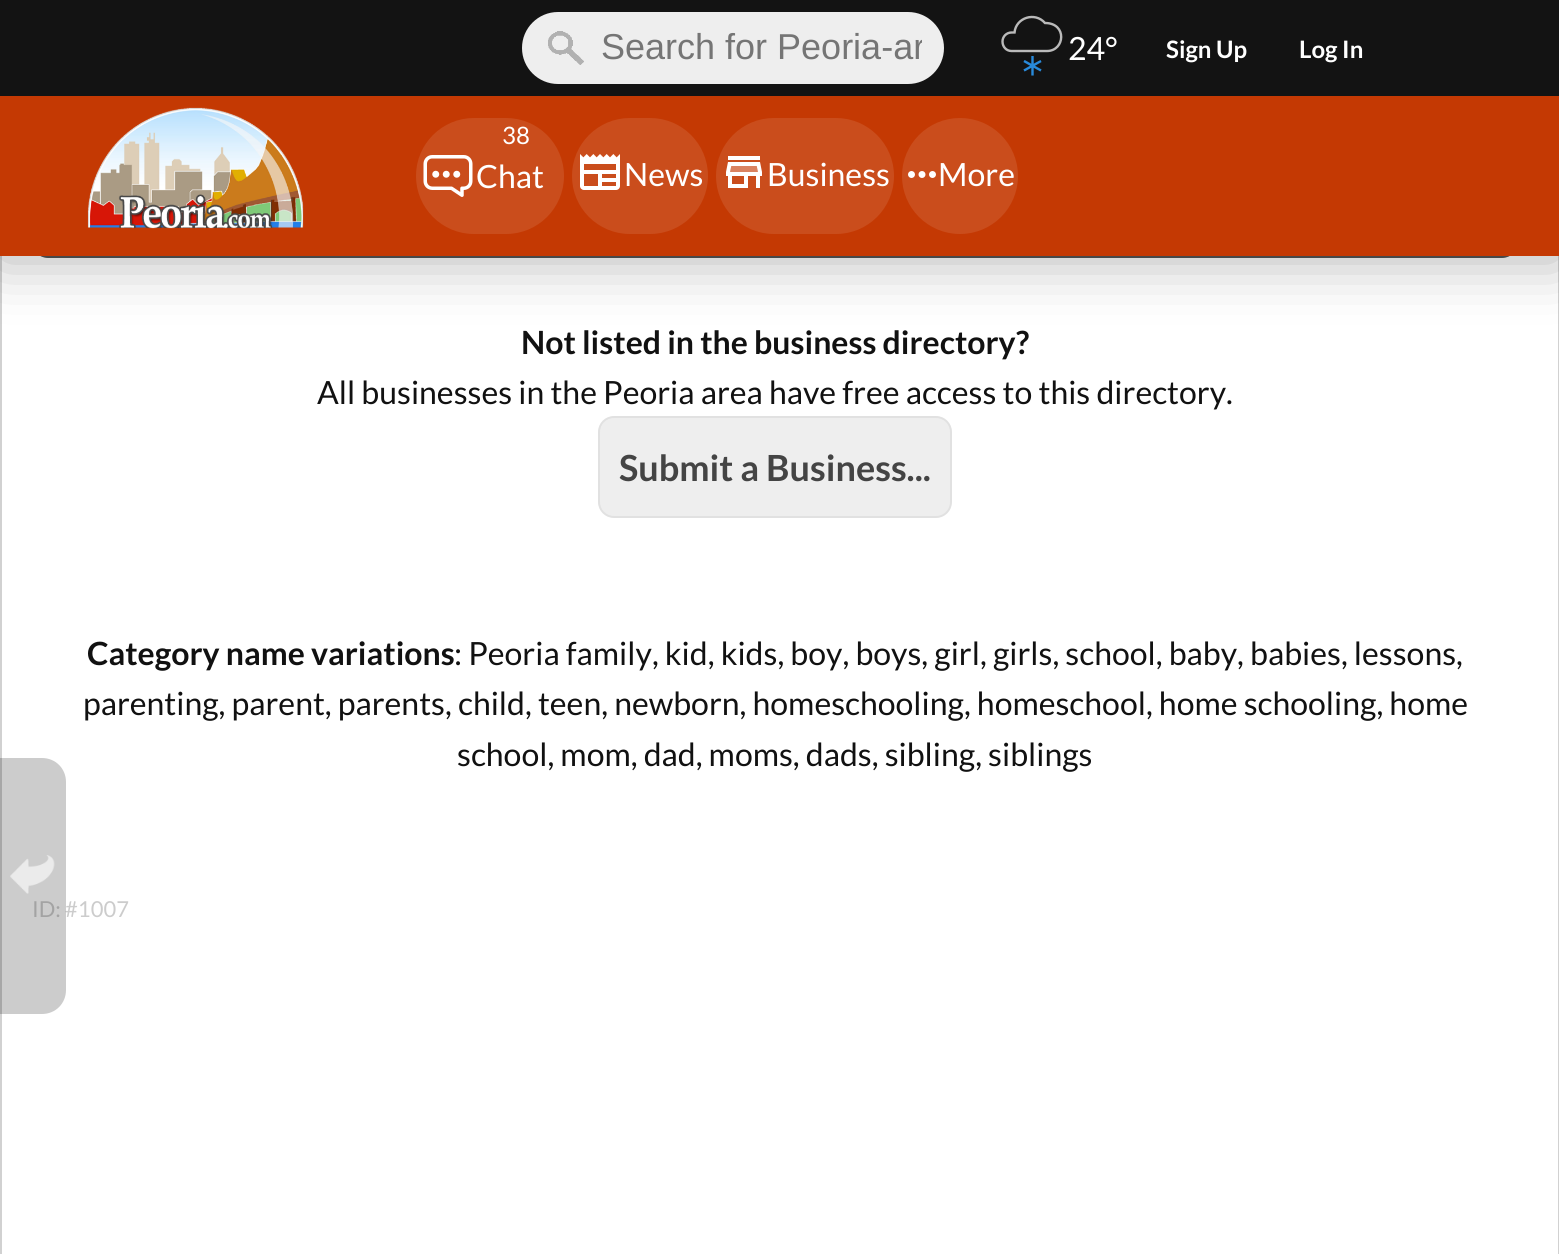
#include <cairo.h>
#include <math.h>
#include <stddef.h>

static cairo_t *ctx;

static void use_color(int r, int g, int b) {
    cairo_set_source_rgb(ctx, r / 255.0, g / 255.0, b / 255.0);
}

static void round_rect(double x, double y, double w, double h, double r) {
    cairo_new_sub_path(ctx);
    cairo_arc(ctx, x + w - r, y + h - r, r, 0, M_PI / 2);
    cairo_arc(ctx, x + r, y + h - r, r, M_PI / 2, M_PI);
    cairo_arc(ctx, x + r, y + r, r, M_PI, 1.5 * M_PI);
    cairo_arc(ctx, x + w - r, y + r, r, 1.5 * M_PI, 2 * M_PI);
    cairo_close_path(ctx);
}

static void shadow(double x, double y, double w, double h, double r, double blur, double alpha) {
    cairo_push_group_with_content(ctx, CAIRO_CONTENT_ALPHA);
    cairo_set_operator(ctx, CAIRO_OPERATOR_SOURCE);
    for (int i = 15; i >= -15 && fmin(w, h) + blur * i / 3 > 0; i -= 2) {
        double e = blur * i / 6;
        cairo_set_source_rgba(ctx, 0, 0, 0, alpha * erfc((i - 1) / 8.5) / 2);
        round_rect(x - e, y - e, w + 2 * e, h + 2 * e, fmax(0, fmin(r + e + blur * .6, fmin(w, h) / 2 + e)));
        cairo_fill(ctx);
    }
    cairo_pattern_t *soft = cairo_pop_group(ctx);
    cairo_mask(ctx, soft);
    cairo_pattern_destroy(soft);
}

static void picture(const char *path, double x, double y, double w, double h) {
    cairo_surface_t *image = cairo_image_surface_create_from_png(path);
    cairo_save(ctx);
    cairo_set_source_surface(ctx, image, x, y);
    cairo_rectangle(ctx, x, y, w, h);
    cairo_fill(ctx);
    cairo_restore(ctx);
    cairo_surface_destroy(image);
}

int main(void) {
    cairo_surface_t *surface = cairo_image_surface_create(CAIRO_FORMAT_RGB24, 1559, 1254);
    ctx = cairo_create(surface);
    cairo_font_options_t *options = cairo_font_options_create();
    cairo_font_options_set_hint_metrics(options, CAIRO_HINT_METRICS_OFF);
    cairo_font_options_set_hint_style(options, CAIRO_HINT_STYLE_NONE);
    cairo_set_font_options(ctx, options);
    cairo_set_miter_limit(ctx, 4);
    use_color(255, 255, 255);
    cairo_paint(ctx);
    use_color(209, 209, 209);
    cairo_new_path(ctx);
    cairo_move_to(ctx, 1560, -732);
    cairo_line_to(ctx, 1558, -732);
    cairo_line_to(ctx, 1558, 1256);
    cairo_line_to(ctx, 1557, 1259);
    cairo_line_to(ctx, 1558, 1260);
    cairo_curve_to(ctx, 1559, 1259, 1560, 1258, 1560, 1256);
    cairo_close_path(ctx);
    cairo_fill(ctx);
    cairo_new_path(ctx);
    cairo_move_to(ctx, 0, -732);
    cairo_line_to(ctx, 2, -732);
    cairo_line_to(ctx, 2, 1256);
    cairo_line_to(ctx, 3, 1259);
    cairo_line_to(ctx, 2, 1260);
    cairo_curve_to(ctx, 1, 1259, 0, 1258, 0, 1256);
    cairo_close_path(ctx);
    cairo_fill(ctx);
    round_rect(33, 165, 1484, 92, 15);
    use_color(85, 85, 85);
    cairo_stroke(ctx);
    use_color(0, 0, 0);
    shadow(-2, 0, 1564, 260, 0, 30, 0.3);
    use_color(19, 19, 19);
    cairo_rectangle(ctx, 0, 0, 1559, 96);
    cairo_fill(ctx);
    use_color(238, 238, 238);
    round_rect(522, 12, 422, 72, 36);
    cairo_fill(ctx);
    picture("img1.png", 548, 31, 36, 34);
    cairo_save(ctx);
    cairo_rectangle(ctx, 600, 28, 322, 42);
    cairo_clip(ctx);
    cairo_select_font_face(ctx, "Liberation Sans", CAIRO_FONT_SLANT_NORMAL, CAIRO_FONT_WEIGHT_NORMAL);
    cairo_set_font_size(ctx, 36);
    use_color(117, 117, 117);
    cairo_move_to(ctx, 601, 59);
    cairo_show_text(ctx, "Search for Peoria-ar");
    cairo_restore(ctx);
    cairo_new_path(ctx);
    cairo_move_to(ctx, 1047, 51);
    cairo_curve_to(ctx, 1065, 51, 1067.5, 23, 1045, 23);
    cairo_curve_to(ctx, 1035, 11.5, 1016, 17.5, 1014.5, 32.5);
    cairo_line_to(ctx, 1011.5, 32.5);
    cairo_curve_to(ctx, 1006.5, 32.5, 1002.5, 36.5, 1002.5, 41.5);
    cairo_curve_to(ctx, 1002.5, 47, 1006.5, 51, 1011.5, 51);
    cairo_close_path(ctx);
    use_color(186, 186, 186);
    cairo_set_line_width(ctx, 2.4);
    cairo_stroke(ctx);
    cairo_new_path(ctx);
    cairo_move_to(ctx, 1032.5, 56);
    cairo_line_to(ctx, 1032.5, 75.5);
    cairo_move_to(ctx, 1024, 61);
    cairo_line_to(ctx, 1041, 70.5);
    cairo_move_to(ctx, 1024, 70.5);
    cairo_line_to(ctx, 1041, 61);
    use_color(40, 138, 219);
    cairo_stroke(ctx);
    cairo_select_font_face(ctx, "Lato", CAIRO_FONT_SLANT_NORMAL, CAIRO_FONT_WEIGHT_NORMAL);
    cairo_set_font_size(ctx, 32);
    use_color(255, 255, 255);
    cairo_move_to(ctx, 1068, 60);
    cairo_show_text(ctx, "24°");
    cairo_select_font_face(ctx, "Lato", CAIRO_FONT_SLANT_NORMAL, CAIRO_FONT_WEIGHT_BOLD);
    cairo_set_font_size(ctx, 24);
    cairo_move_to(ctx, 1166, 58);
    cairo_show_text(ctx, "Sign Up");
    cairo_move_to(ctx, 1299, 58);
    cairo_show_text(ctx, "Log In");
    use_color(196, 57, 3);
    cairo_rectangle(ctx, 0, 96, 1559, 160);
    cairo_fill(ctx);
    picture("img2.png", 87, 107, 217, 122);
    use_color(202, 77, 28);
    round_rect(416, 118, 148, 116, 58);
    cairo_fill(ctx);
    cairo_select_font_face(ctx, "Lato", CAIRO_FONT_SLANT_NORMAL, CAIRO_FONT_WEIGHT_NORMAL);
    use_color(255, 255, 255);
    cairo_move_to(ctx, 502, 144);
    cairo_show_text(ctx, "38");
    picture("img3.png", 423, 155, 50, 42);
    cairo_set_font_size(ctx, 32);
    cairo_move_to(ctx, 476, 188);
    cairo_show_text(ctx, "Chat");
    use_color(202, 77, 28);
    round_rect(572, 118, 136, 116, 58);
    cairo_fill(ctx);
    picture("img4.png", 580, 154, 40, 36);
    use_color(255, 255, 255);
    cairo_move_to(ctx, 624, 186);
    cairo_show_text(ctx, "News");
    use_color(202, 77, 28);
    round_rect(716, 118, 178, 116, 58);
    cairo_fill(ctx);
    picture("img5.png", 726, 156, 36, 32);
    use_color(255, 255, 255);
    cairo_move_to(ctx, 767, 186);
    cairo_show_text(ctx, "Business");
    use_color(202, 77, 28);
    cairo_new_path(ctx);
    cairo_arc(ctx, 960, 176, 58, 0, 2 * M_PI);
    cairo_fill(ctx);
    picture("img6.png", 908, 171, 28, 7);
    use_color(255, 255, 255);
    cairo_move_to(ctx, 938, 186);
    cairo_show_text(ctx, "More");
    cairo_set_font_size(ctx, 22);
    use_color(204, 204, 204);
    cairo_move_to(ctx, 32, 917);
    cairo_show_text(ctx, "ID: #1007");
    cairo_set_source_rgba(ctx, 0, 0, 0, 0.2);
    cairo_new_path(ctx);
    cairo_move_to(ctx, 0, 758);
    cairo_line_to(ctx, 42, 758);
    cairo_curve_to(ctx, 55.5, 758, 66, 768.5, 66, 782);
    cairo_line_to(ctx, 66, 990);
    cairo_curve_to(ctx, 66, 1003.5, 55.5, 1014, 42, 1014);
    cairo_line_to(ctx, 0, 1014);
    cairo_close_path(ctx);
    cairo_fill(ctx);
    picture("img7.png", 10, 855, 45, 39);
    cairo_select_font_face(ctx, "Lato", CAIRO_FONT_SLANT_NORMAL, CAIRO_FONT_WEIGHT_BOLD);
    cairo_set_font_size(ctx, 32);
    use_color(17, 17, 17);
    cairo_move_to(ctx, 521, 354);
    cairo_show_text(ctx, "Not listed in the business directory?");
    cairo_select_font_face(ctx, "Lato", CAIRO_FONT_SLANT_NORMAL, CAIRO_FONT_WEIGHT_NORMAL);
    cairo_move_to(ctx, 317, 404);
    cairo_show_text(ctx, "All businesses in the Peoria area have free access to this directory.");
    use_color(238, 238, 238);
    round_rect(599, 417, 352, 100, 15);
    cairo_fill_preserve(ctx);
    use_color(225, 225, 225);
    cairo_set_line_width(ctx, 2);
    cairo_stroke(ctx);
    cairo_select_font_face(ctx, "Lato", CAIRO_FONT_SLANT_NORMAL, CAIRO_FONT_WEIGHT_BOLD);
    cairo_set_font_size(ctx, 36);
    use_color(68, 68, 68);
    cairo_move_to(ctx, 619, 481);
    cairo_show_text(ctx, "Submit a Business...");
    cairo_set_font_size(ctx, 32);
    use_color(17, 17, 17);
    cairo_move_to(ctx, 87, 665);
    cairo_show_text(ctx, "Category name variations");
    cairo_select_font_face(ctx, "Lato", CAIRO_FONT_SLANT_NORMAL, CAIRO_FONT_WEIGHT_NORMAL);
    cairo_move_to(ctx, 454, 665);
    cairo_show_text(ctx, ": Peoria family, kid, kids, boy, boys, girl, girls, school, baby, babies, lessons,");
    cairo_move_to(ctx, 83, 715);
    cairo_show_text(ctx, "parenting, parent, parents, child, teen, newborn, homeschooling, homeschool, home schooling, home");
    cairo_move_to(ctx, 457, 766);
    cairo_show_text(ctx, "school, mom, dad, moms, dads, sibling, siblings");
    cairo_surface_write_to_png(surface, "result.png");
    cairo_font_options_destroy(options);
    cairo_destroy(ctx);
    cairo_surface_destroy(surface);
    return 0;
}
